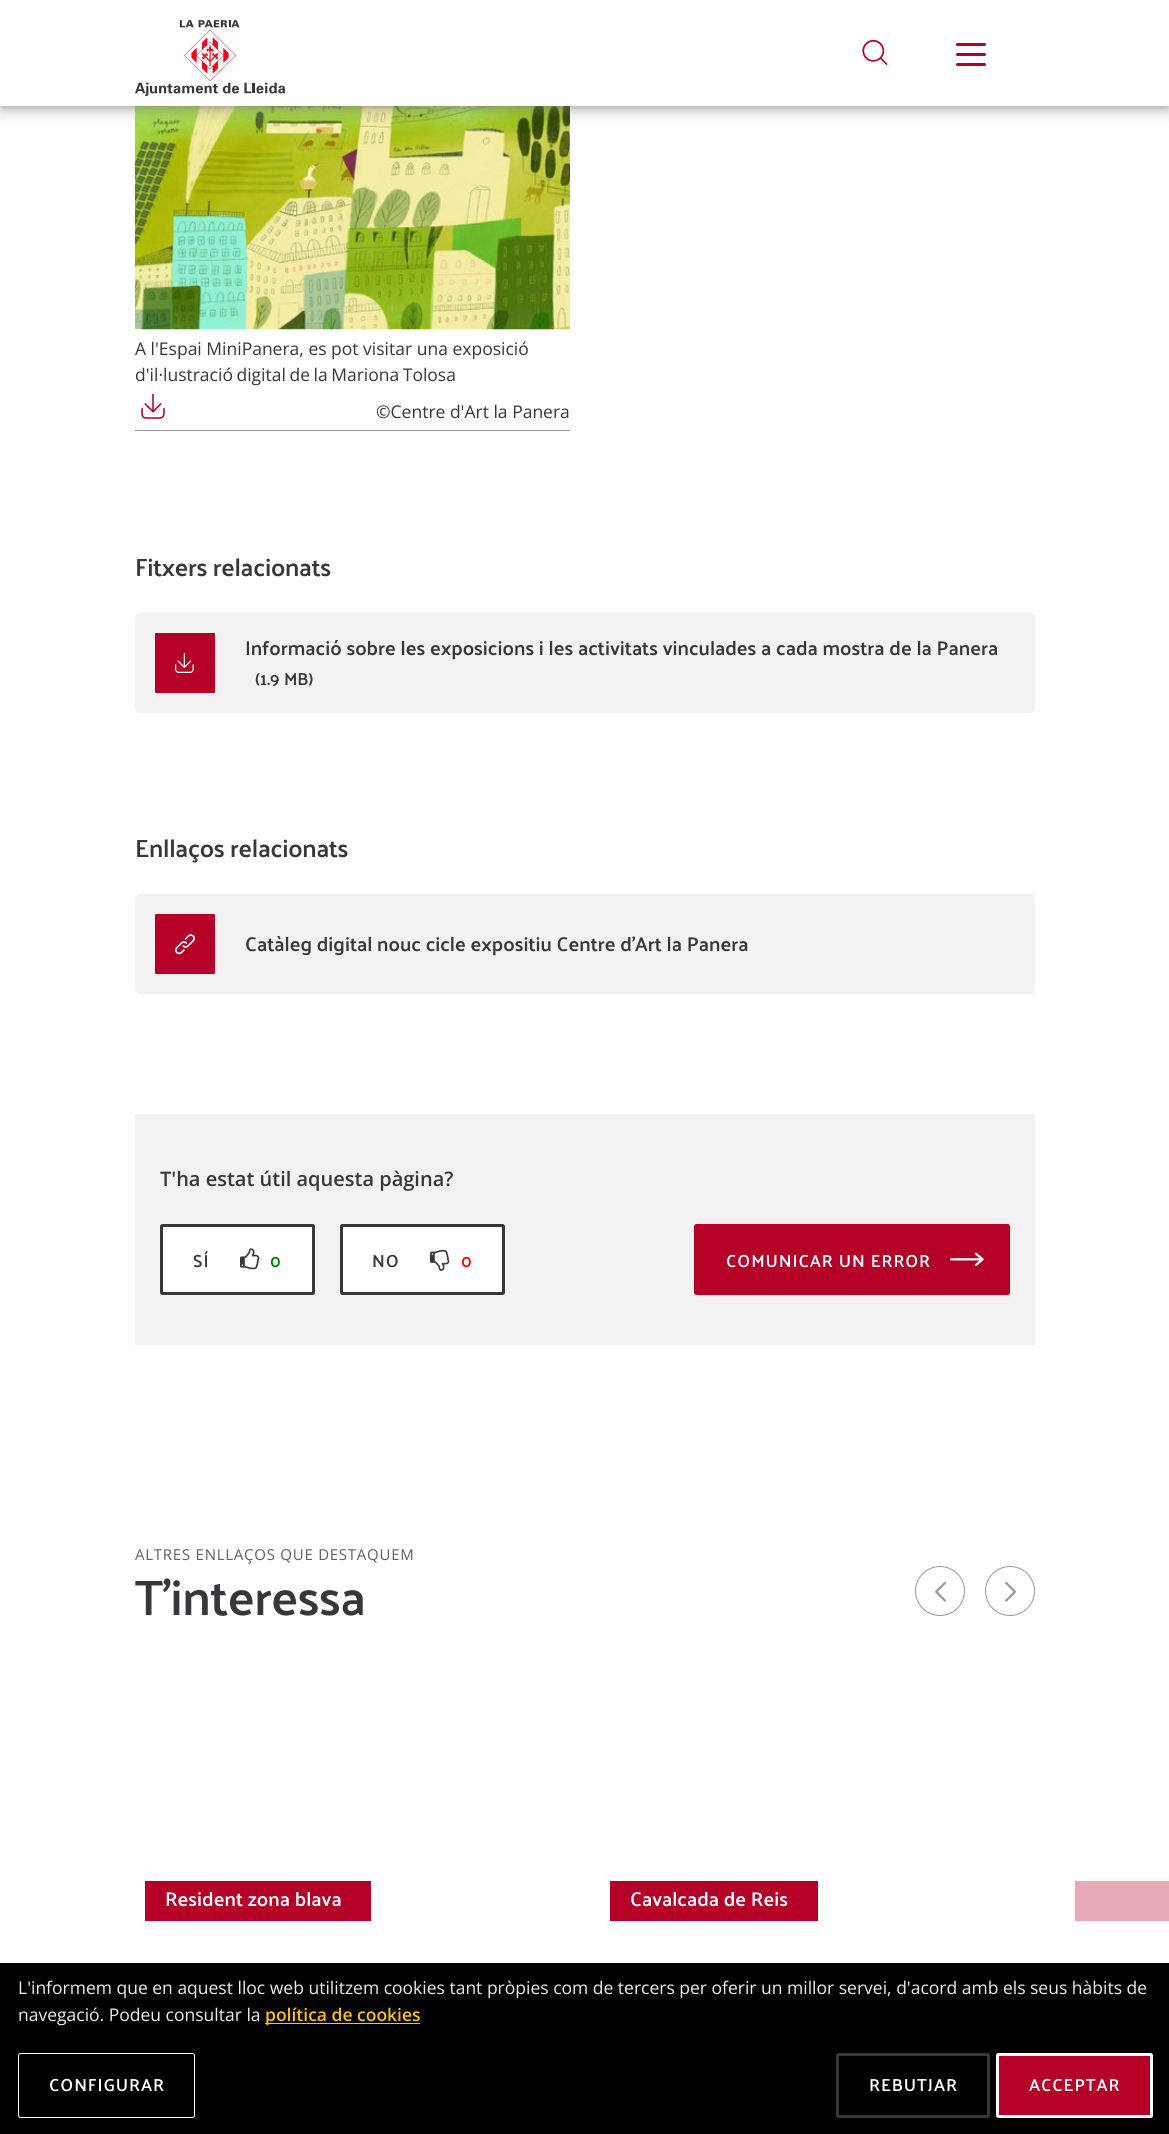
#include <cairo.h>
#include <math.h>
#include <stddef.h>

static cairo_t *ctx;

static void use_color(int r, int g, int b) {
    cairo_set_source_rgb(ctx, r / 255.0, g / 255.0, b / 255.0);
}

static void spaced_text(double x, double y, const char *s, double letter, double word) {
    cairo_move_to(ctx, x, y);
    while (*s) {
        char ch[5] = {0};
        int n = 0;
        do ch[n++] = *s++; while ((*s & 0xC0) == 0x80);
        cairo_show_text(ctx, ch);
        cairo_rel_move_to(ctx, letter + word * (*ch == ' '), 0);
    }
}

static void round_rect(double x, double y, double w, double h, double r) {
    cairo_new_sub_path(ctx);
    cairo_arc(ctx, x + w - r, y + h - r, r, 0, M_PI / 2);
    cairo_arc(ctx, x + r, y + h - r, r, M_PI / 2, M_PI);
    cairo_arc(ctx, x + r, y + r, r, M_PI, 1.5 * M_PI);
    cairo_arc(ctx, x + w - r, y + r, r, 1.5 * M_PI, 2 * M_PI);
    cairo_close_path(ctx);
}

static void shadow(double x, double y, double w, double h, double r, double blur, double alpha) {
    cairo_push_group_with_content(ctx, CAIRO_CONTENT_ALPHA);
    cairo_set_operator(ctx, CAIRO_OPERATOR_SOURCE);
    for (int i = 15; i >= -15 && fmin(w, h) + blur * i / 3 > 0; i -= 2) {
        double e = blur * i / 6;
        cairo_set_source_rgba(ctx, 0, 0, 0, alpha * erfc((i - 1) / 8.5) / 2);
        round_rect(x - e, y - e, w + 2 * e, h + 2 * e, fmax(0, fmin(r + e + blur * .6, fmin(w, h) / 2 + e)));
        cairo_fill(ctx);
    }
    cairo_pattern_t *soft = cairo_pop_group(ctx);
    cairo_mask(ctx, soft);
    cairo_pattern_destroy(soft);
}

static void picture(const char *path, double x, double y, double w, double h) {
    cairo_surface_t *image = cairo_image_surface_create_from_png(path);
    cairo_save(ctx);
    cairo_set_source_surface(ctx, image, x, y);
    cairo_rectangle(ctx, x, y, w, h);
    cairo_fill(ctx);
    cairo_restore(ctx);
    cairo_surface_destroy(image);
}

int main(void) {
    cairo_surface_t *surface = cairo_image_surface_create(CAIRO_FORMAT_RGB24, 1169, 2134);
    ctx = cairo_create(surface);
    cairo_font_options_t *options = cairo_font_options_create();
    cairo_font_options_set_hint_metrics(options, CAIRO_HINT_METRICS_OFF);
    cairo_font_options_set_hint_style(options, CAIRO_HINT_STYLE_NONE);
    cairo_set_font_options(ctx, options);
    cairo_set_miter_limit(ctx, 4);
    use_color(255, 255, 255);
    cairo_paint(ctx);
    picture("img3.png", 135, 106, 435, 224);
    use_color(119, 119, 119);
    shadow(0, 10, 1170, 106, 0, 5, 0.2);
    shadow(0, 5, 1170, 106, 0, 2.5, 0.16);
    shadow(0, 3, 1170, 106, 0, 1, 0.12);
    shadow(0, 1, 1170, 107, 0, 0.5, 0.08);
    use_color(255, 255, 255);
    cairo_rectangle(ctx, 0, 0, 1169, 106);
    cairo_fill(ctx);
    picture("img1.png", 135, 20, 150, 76);
    picture("img2.png", 862, 39, 26, 26);
    use_color(181, 0, 39);
    round_rect(956, 53, 30, 3, 1.5);
    cairo_fill(ctx);
    round_rect(956, 43, 30, 3, 1.5);
    cairo_fill(ctx);
    round_rect(956, 63, 30, 3, 1.5);
    cairo_fill(ctx);
    use_color(153, 153, 153);
    cairo_rectangle(ctx, 135, 430, 435, 1);
    cairo_fill(ctx);
    cairo_select_font_face(ctx, "Open Sans", CAIRO_FONT_SLANT_NORMAL, CAIRO_FONT_WEIGHT_NORMAL);
    cairo_set_font_size(ctx, 17.5);
    use_color(55, 54, 59);
    cairo_move_to(ctx, 135, 355);
    cairo_show_text(ctx, "A l'Espai MiniPanera, es pot visitar una exposició");
    spaced_text(135, 381, "d'il·lustració digital de la Mariona Tolosa", 0, -1);
    picture("img4.png", 141, 393, 24, 26);
    cairo_move_to(ctx, 376, 418);
    cairo_show_text(ctx, "©Centre d'Art la Panera");
    cairo_select_font_face(ctx, "Palanquin SemiBold", CAIRO_FONT_SLANT_NORMAL, CAIRO_FONT_WEIGHT_NORMAL);
    cairo_set_font_size(ctx, 25);
    spaced_text(135, 576, "Fitxers relacionats", -0.25, 0);
    use_color(242, 242, 242);
    round_rect(135, 613, 900, 100, 5);
    cairo_fill(ctx);
    use_color(181, 0, 39);
    round_rect(155, 633, 60, 60, 1);
    cairo_fill(ctx);
    picture("img5.png", 175, 653, 19, 20);
    cairo_set_font_size(ctx, 20);
    use_color(55, 54, 59);
    cairo_move_to(ctx, 245, 655);
    cairo_show_text(ctx, "Informació sobre les exposicions i les activitats vinculades a cada mostra de la Panera");
    cairo_set_font_size(ctx, 17.5);
    cairo_move_to(ctx, 255, 685);
    cairo_show_text(ctx, "(1.9 MB)");
    cairo_set_font_size(ctx, 25);
    spaced_text(135, 857, "Enllaços relacionats", -0.25, 0);
    use_color(242, 242, 242);
    round_rect(135, 894, 900, 100, 5);
    cairo_fill(ctx);
    use_color(181, 0, 39);
    round_rect(155, 914, 60, 60, 1);
    cairo_fill(ctx);
    picture("img6.png", 175, 934, 20, 21);
    cairo_set_font_size(ctx, 20);
    use_color(55, 54, 59);
    cairo_move_to(ctx, 245, 951);
    cairo_show_text(ctx, "Catàleg digital nouc cicle expositiu Centre d'Art la Panera");
    use_color(242, 242, 242);
    cairo_rectangle(ctx, 135, 1114, 900, 231);
    cairo_fill(ctx);
    cairo_select_font_face(ctx, "Open Sans SemiBold", CAIRO_FONT_SLANT_NORMAL, CAIRO_FONT_WEIGHT_NORMAL);
    use_color(55, 54, 59);
    cairo_move_to(ctx, 160, 1186);
    cairo_show_text(ctx, "T'ha estat útil aquesta pàgina?");
    use_color(255, 255, 255);
    round_rect(161.5, 1225.5, 152, 68, 1);
    cairo_fill_preserve(ctx);
    use_color(55, 54, 59);
    cairo_set_line_width(ctx, 3);
    cairo_stroke(ctx);
    cairo_select_font_face(ctx, "Palanquin SemiBold", CAIRO_FONT_SLANT_NORMAL, CAIRO_FONT_WEIGHT_NORMAL);
    cairo_set_font_size(ctx, 17.5);
    spaced_text(193, 1267, "SÍ", 0.9, 0);
    picture("img7.png", 240, 1248, 20, 22);
    use_color(0, 128, 0);
    spaced_text(270, 1267, "0", 0.9, 0);
    use_color(255, 255, 255);
    round_rect(341.5, 1225.5, 162, 68, 1);
    cairo_fill_preserve(ctx);
    use_color(55, 54, 59);
    cairo_stroke(ctx);
    spaced_text(372, 1267, "NO", 0.9, 0);
    picture("img8.png", 430, 1250, 20, 21);
    use_color(255, 0, 0);
    spaced_text(461, 1267, "0", 0.9, 0);
    use_color(181, 0, 39);
    round_rect(695.5, 1225.5, 313, 68, 1);
    cairo_fill_preserve(ctx);
    cairo_stroke(ctx);
    use_color(255, 255, 255);
    spaced_text(726, 1267, "COMUNICAR UN ERROR", 0.9, 0);
    picture("img9.png", 950, 1252, 34, 15);
    cairo_select_font_face(ctx, "Open Sans", CAIRO_FONT_SLANT_NORMAL, CAIRO_FONT_WEIGHT_NORMAL);
    cairo_set_font_size(ctx, 15);
    use_color(95, 94, 98);
    spaced_text(135, 1560, "ALTRES ENLLAÇOS QUE DESTAQUEM", 0.75, 0);
    cairo_select_font_face(ctx, "Palanquin SemiBold", CAIRO_FONT_SLANT_NORMAL, CAIRO_FONT_WEIGHT_NORMAL);
    cairo_set_font_size(ctx, 50);
    use_color(55, 54, 59);
    spaced_text(135, 1615, "T'interessa", -0.5, 0);
    cairo_new_path(ctx);
    cairo_arc(ctx, 940, 1591, 24.5, 0, 2 * M_PI);
    use_color(153, 153, 153);
    cairo_set_line_width(ctx, 1);
    cairo_stroke(ctx);
    picture("img10.png", 935, 1581, 11, 21);
    cairo_arc(ctx, 1010, 1591, 24.5, 0, 2 * M_PI);
    cairo_stroke(ctx);
    picture("img11.png", 1005, 1581, 12, 21);
    use_color(181, 0, 39);
    cairo_rectangle(ctx, 145, 1881, 226, 40);
    cairo_fill(ctx);
    cairo_set_font_size(ctx, 20);
    use_color(255, 255, 255);
    cairo_move_to(ctx, 165, 1906);
    cairo_show_text(ctx, "Resident zona blava");
    use_color(181, 0, 39);
    cairo_rectangle(ctx, 610, 1881, 208, 40);
    cairo_fill(ctx);
    use_color(255, 255, 255);
    cairo_move_to(ctx, 630, 1906);
    cairo_show_text(ctx, "Cavalcada de Reis");
    use_color(231, 171, 184);
    cairo_rectangle(ctx, 1075, 1881, 94, 40);
    cairo_fill(ctx);
    use_color(0, 0, 0);
    cairo_rectangle(ctx, 0, 1963, 1169, 171);
    cairo_fill(ctx);
    cairo_select_font_face(ctx, "Open Sans", CAIRO_FONT_SLANT_NORMAL, CAIRO_FONT_WEIGHT_NORMAL);
    cairo_set_font_size(ctx, 17.5);
    use_color(238, 238, 238);
    cairo_move_to(ctx, 18, 1994);
    cairo_show_text(ctx, "L'informem que en aquest lloc web utilitzem cookies tant pròpies com de tercers per oferir un millor servei, d'acord amb els seus hàbits de");
    cairo_move_to(ctx, 18, 2021);
    cairo_show_text(ctx, "navegació. Podeu consultar la");
    use_color(255, 194, 16);
    cairo_rectangle(ctx, 265, 2023, 155, 1);
    cairo_fill(ctx);
    cairo_select_font_face(ctx, "Open Sans SemiBold", CAIRO_FONT_SLANT_NORMAL, CAIRO_FONT_WEIGHT_NORMAL);
    cairo_move_to(ctx, 265, 2021);
    cairo_show_text(ctx, "política de cookies");
    round_rect(18.5, 2053.5, 176, 64, 2);
    use_color(255, 255, 255);
    cairo_stroke(ctx);
    cairo_select_font_face(ctx, "Palanquin SemiBold", CAIRO_FONT_SLANT_NORMAL, CAIRO_FONT_WEIGHT_NORMAL);
    spaced_text(49, 2091, "CONFIGURAR", 0.9, 0);
    round_rect(837.5, 2054.5, 151, 62, 1);
    use_color(55, 54, 59);
    cairo_set_line_width(ctx, 3);
    cairo_stroke(ctx);
    use_color(255, 255, 255);
    spaced_text(869, 2091, "REBUTJAR", 0.9, 0);
    use_color(181, 0, 39);
    round_rect(997.5, 2054.5, 154, 62, 1);
    cairo_fill_preserve(ctx);
    use_color(255, 255, 255);
    cairo_stroke(ctx);
    spaced_text(1029, 2091, "ACCEPTAR", 0.9, 0);
    cairo_surface_write_to_png(surface, "result.png");
    cairo_font_options_destroy(options);
    cairo_destroy(ctx);
    cairo_surface_destroy(surface);
    return 0;
}
